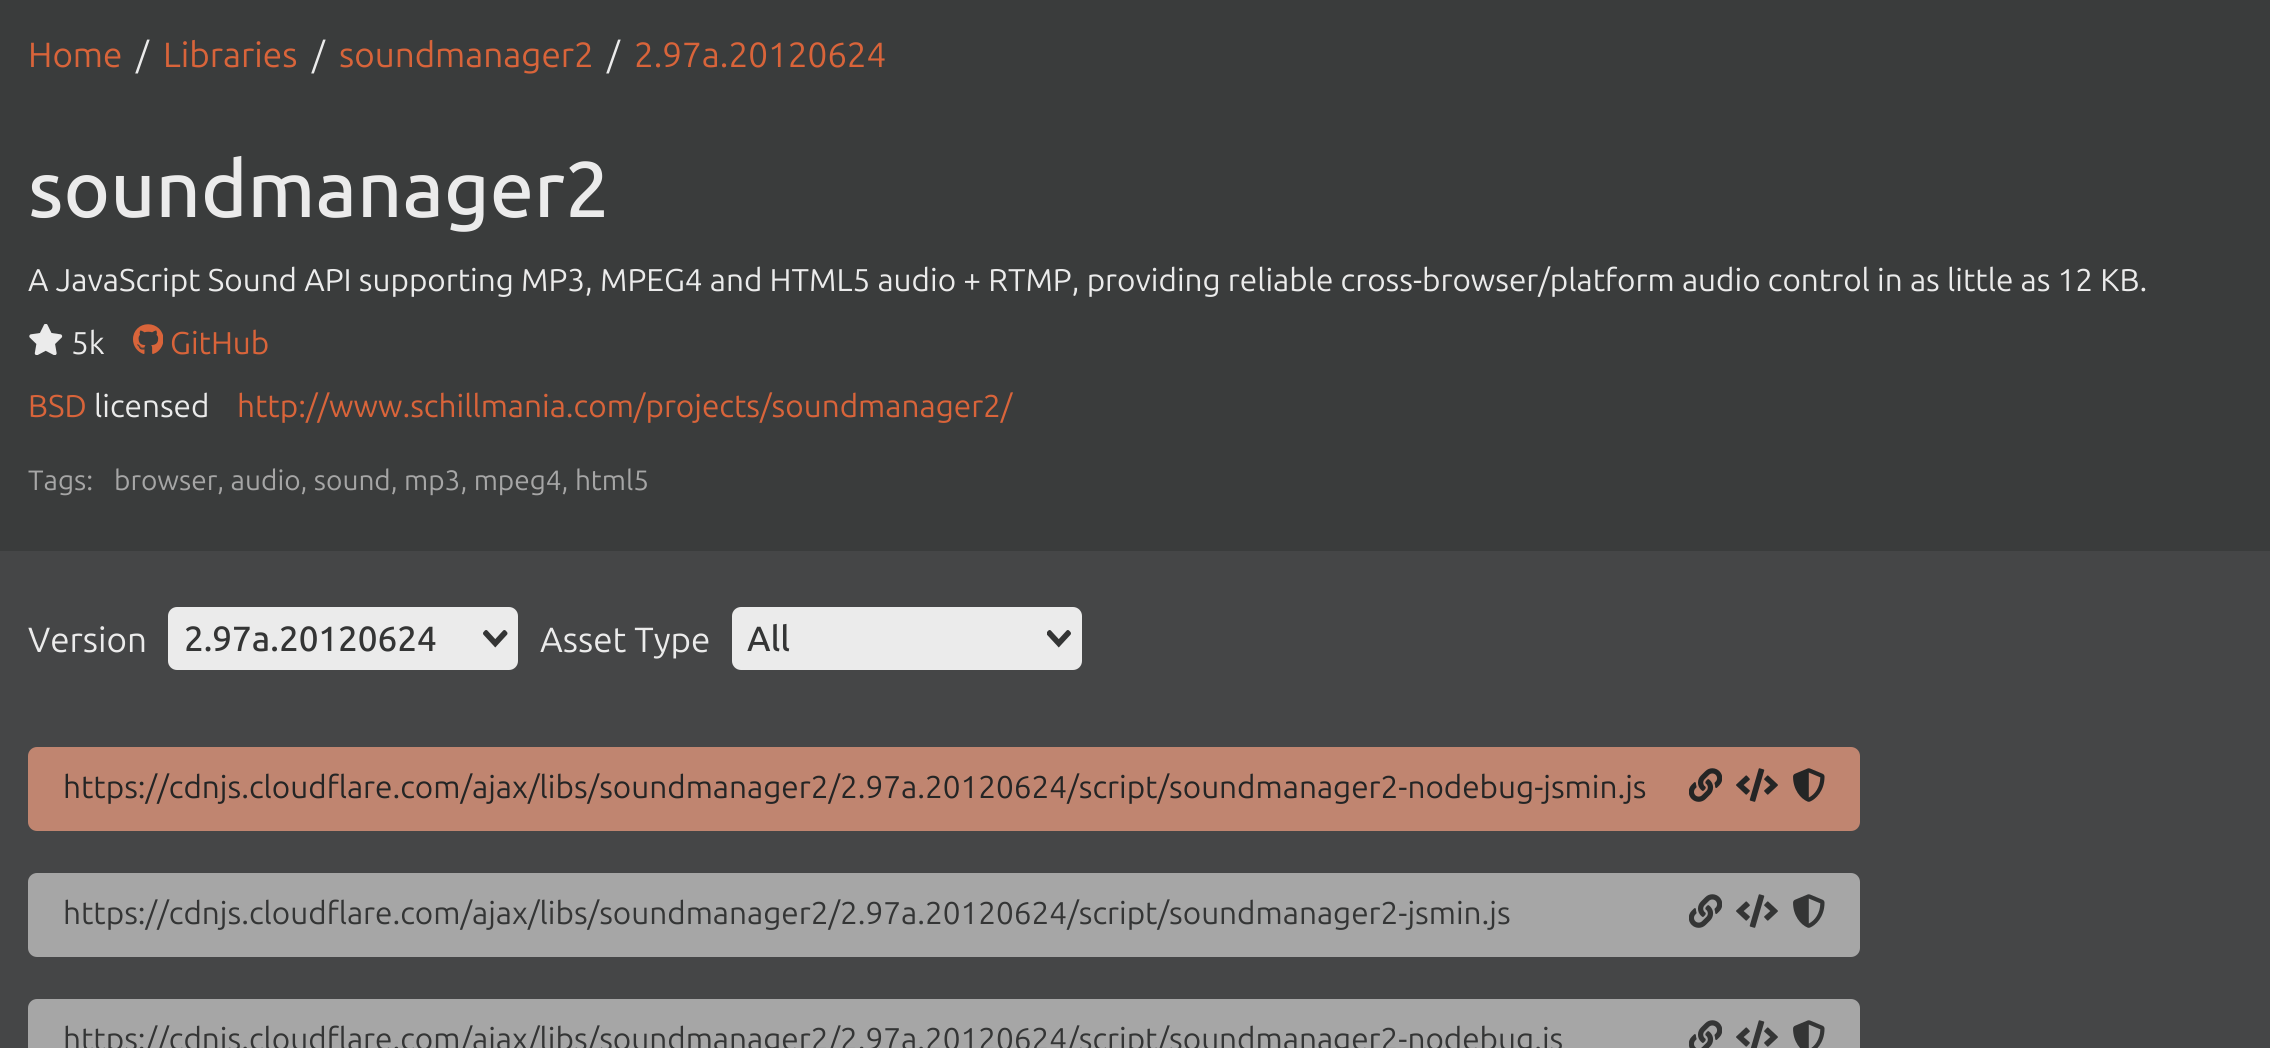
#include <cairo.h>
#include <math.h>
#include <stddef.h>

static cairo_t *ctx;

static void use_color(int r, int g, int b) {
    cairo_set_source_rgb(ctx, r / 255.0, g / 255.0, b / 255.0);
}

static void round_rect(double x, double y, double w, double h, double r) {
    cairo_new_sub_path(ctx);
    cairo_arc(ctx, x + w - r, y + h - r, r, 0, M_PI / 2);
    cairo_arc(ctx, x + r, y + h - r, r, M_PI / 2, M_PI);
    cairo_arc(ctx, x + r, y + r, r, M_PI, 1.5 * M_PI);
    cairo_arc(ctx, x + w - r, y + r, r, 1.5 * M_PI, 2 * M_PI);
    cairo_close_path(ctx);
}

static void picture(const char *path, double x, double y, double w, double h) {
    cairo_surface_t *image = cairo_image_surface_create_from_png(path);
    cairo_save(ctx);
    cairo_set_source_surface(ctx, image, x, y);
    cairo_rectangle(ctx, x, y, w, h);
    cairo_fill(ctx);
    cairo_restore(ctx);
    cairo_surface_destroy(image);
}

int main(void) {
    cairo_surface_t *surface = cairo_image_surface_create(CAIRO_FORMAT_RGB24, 2270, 1048);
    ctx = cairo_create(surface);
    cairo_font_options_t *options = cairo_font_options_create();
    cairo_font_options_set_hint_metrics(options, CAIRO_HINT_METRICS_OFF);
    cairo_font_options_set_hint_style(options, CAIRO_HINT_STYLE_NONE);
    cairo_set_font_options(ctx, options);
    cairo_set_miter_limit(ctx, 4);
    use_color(69, 70, 71);
    cairo_paint(ctx);
    use_color(58, 60, 60);
    cairo_rectangle(ctx, 0, 0, 2270, 551);
    cairo_fill(ctx);
    cairo_select_font_face(ctx, "Ubuntu", CAIRO_FONT_SLANT_NORMAL, CAIRO_FONT_WEIGHT_NORMAL);
    cairo_set_font_size(ctx, 35);
    use_color(217, 100, 58);
    cairo_move_to(ctx, 28, 67);
    cairo_show_text(ctx, "Home");
    use_color(235, 235, 235);
    cairo_move_to(ctx, 136, 67);
    cairo_show_text(ctx, "/");
    use_color(217, 100, 58);
    cairo_move_to(ctx, 163, 67);
    cairo_show_text(ctx, "Libraries");
    use_color(235, 235, 235);
    cairo_move_to(ctx, 312, 67);
    cairo_show_text(ctx, "/");
    use_color(217, 100, 58);
    cairo_move_to(ctx, 339, 67);
    cairo_show_text(ctx, "soundmanager2");
    use_color(235, 235, 235);
    cairo_move_to(ctx, 607, 67);
    cairo_show_text(ctx, "/");
    use_color(217, 100, 58);
    cairo_move_to(ctx, 634, 67);
    cairo_show_text(ctx, "2.97a.20120624");
    cairo_select_font_face(ctx, "Ubuntu Medium", CAIRO_FONT_SLANT_NORMAL, CAIRO_FONT_WEIGHT_NORMAL);
    cairo_set_font_size(ctx, 78.75);
    use_color(235, 235, 235);
    cairo_move_to(ctx, 28, 217);
    cairo_show_text(ctx, "soundmanager2");
    cairo_select_font_face(ctx, "Ubuntu", CAIRO_FONT_SLANT_NORMAL, CAIRO_FONT_WEIGHT_NORMAL);
    cairo_set_font_size(ctx, 31.5);
    cairo_move_to(ctx, 28, 291);
    cairo_show_text(ctx, "A JavaScript Sound API supporting MP3, MPEG4 and HTML5 audio + RTMP, providing reliable cross-browser/platform audio control in as little as 12 KB.");
    picture("img1.png", 29, 324, 34, 31);
    cairo_move_to(ctx, 71, 354);
    cairo_show_text(ctx, "5k");
    picture("img2.png", 133, 324, 30, 30);
    use_color(217, 100, 58);
    cairo_move_to(ctx, 170, 354);
    cairo_show_text(ctx, "GitHub");
    cairo_move_to(ctx, 28, 417);
    cairo_show_text(ctx, "BSD");
    use_color(235, 235, 235);
    cairo_move_to(ctx, 94, 417);
    cairo_show_text(ctx, "licensed");
    use_color(217, 100, 58);
    cairo_move_to(ctx, 237, 417);
    cairo_show_text(ctx, "http://www.schillmania.com/projects/soundmanager2/");
    cairo_set_font_size(ctx, 28);
    use_color(166, 166, 166);
    cairo_move_to(ctx, 28, 490);
    cairo_show_text(ctx, "Tags:");
    cairo_move_to(ctx, 114, 490);
    cairo_show_text(ctx, "browser, audio, sound, mp3, mpeg4, html5");
    cairo_set_font_size(ctx, 35);
    use_color(235, 235, 235);
    cairo_move_to(ctx, 28, 652);
    cairo_show_text(ctx, "Version");
    round_rect(168, 607, 350, 63, 9);
    cairo_fill(ctx);
    cairo_select_font_face(ctx, "Ubuntu Medium", CAIRO_FONT_SLANT_NORMAL, CAIRO_FONT_WEIGHT_NORMAL);
    use_color(52, 53, 53);
    cairo_move_to(ctx, 184, 651);
    cairo_show_text(ctx, "2.97a.20120624");
    picture("img3.png", 483, 630, 25, 18);
    cairo_select_font_face(ctx, "Ubuntu", CAIRO_FONT_SLANT_NORMAL, CAIRO_FONT_WEIGHT_NORMAL);
    use_color(235, 235, 235);
    cairo_move_to(ctx, 540, 652);
    cairo_show_text(ctx, "Asset Type");
    round_rect(732, 607, 350, 63, 9);
    cairo_fill(ctx);
    cairo_select_font_face(ctx, "Ubuntu Medium", CAIRO_FONT_SLANT_NORMAL, CAIRO_FONT_WEIGHT_NORMAL);
    use_color(52, 53, 53);
    cairo_move_to(ctx, 747, 651);
    cairo_show_text(ctx, "All");
    picture("img4.png", 1047, 630, 24, 18);
    use_color(192, 133, 112);
    round_rect(28, 747, 1832, 84, 9);
    cairo_fill(ctx);
    cairo_select_font_face(ctx, "Ubuntu", CAIRO_FONT_SLANT_NORMAL, CAIRO_FONT_WEIGHT_NORMAL);
    cairo_set_font_size(ctx, 31.5);
    use_color(36, 37, 37);
    cairo_move_to(ctx, 63, 798);
    cairo_show_text(ctx, "https://cdnjs.cloudflare.com/ajax/libs/soundmanager2/2.97a.20120624/script/soundmanager2-nodebug-jsmin.js");
    picture("img5.png", 1689, 768, 33, 34);
    picture("img6.png", 1736, 768, 42, 34);
    picture("img7.png", 1793, 768, 32, 34);
    use_color(166, 166, 166);
    round_rect(28, 873, 1832, 84, 9);
    cairo_fill(ctx);
    use_color(52, 53, 53);
    cairo_move_to(ctx, 63, 924);
    cairo_show_text(ctx, "https://cdnjs.cloudflare.com/ajax/libs/soundmanager2/2.97a.20120624/script/soundmanager2-jsmin.js");
    picture("img8.png", 1689, 894, 33, 34);
    picture("img9.png", 1736, 894, 42, 34);
    picture("img10.png", 1793, 894, 32, 34);
    use_color(166, 166, 166);
    round_rect(28, 999, 1832, 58, 9);
    cairo_fill(ctx);
    use_color(52, 53, 53);
    cairo_move_to(ctx, 63, 1050);
    cairo_show_text(ctx, "https://cdnjs.cloudflare.com/ajax/libs/soundmanager2/2.97a.20120624/script/soundmanager2-nodebug.js");
    picture("img11.png", 1689, 1020, 33, 28);
    picture("img12.png", 1736, 1020, 42, 28);
    picture("img13.png", 1793, 1020, 32, 28);
    cairo_surface_write_to_png(surface, "result.png");
    cairo_font_options_destroy(options);
    cairo_destroy(ctx);
    cairo_surface_destroy(surface);
    return 0;
}
